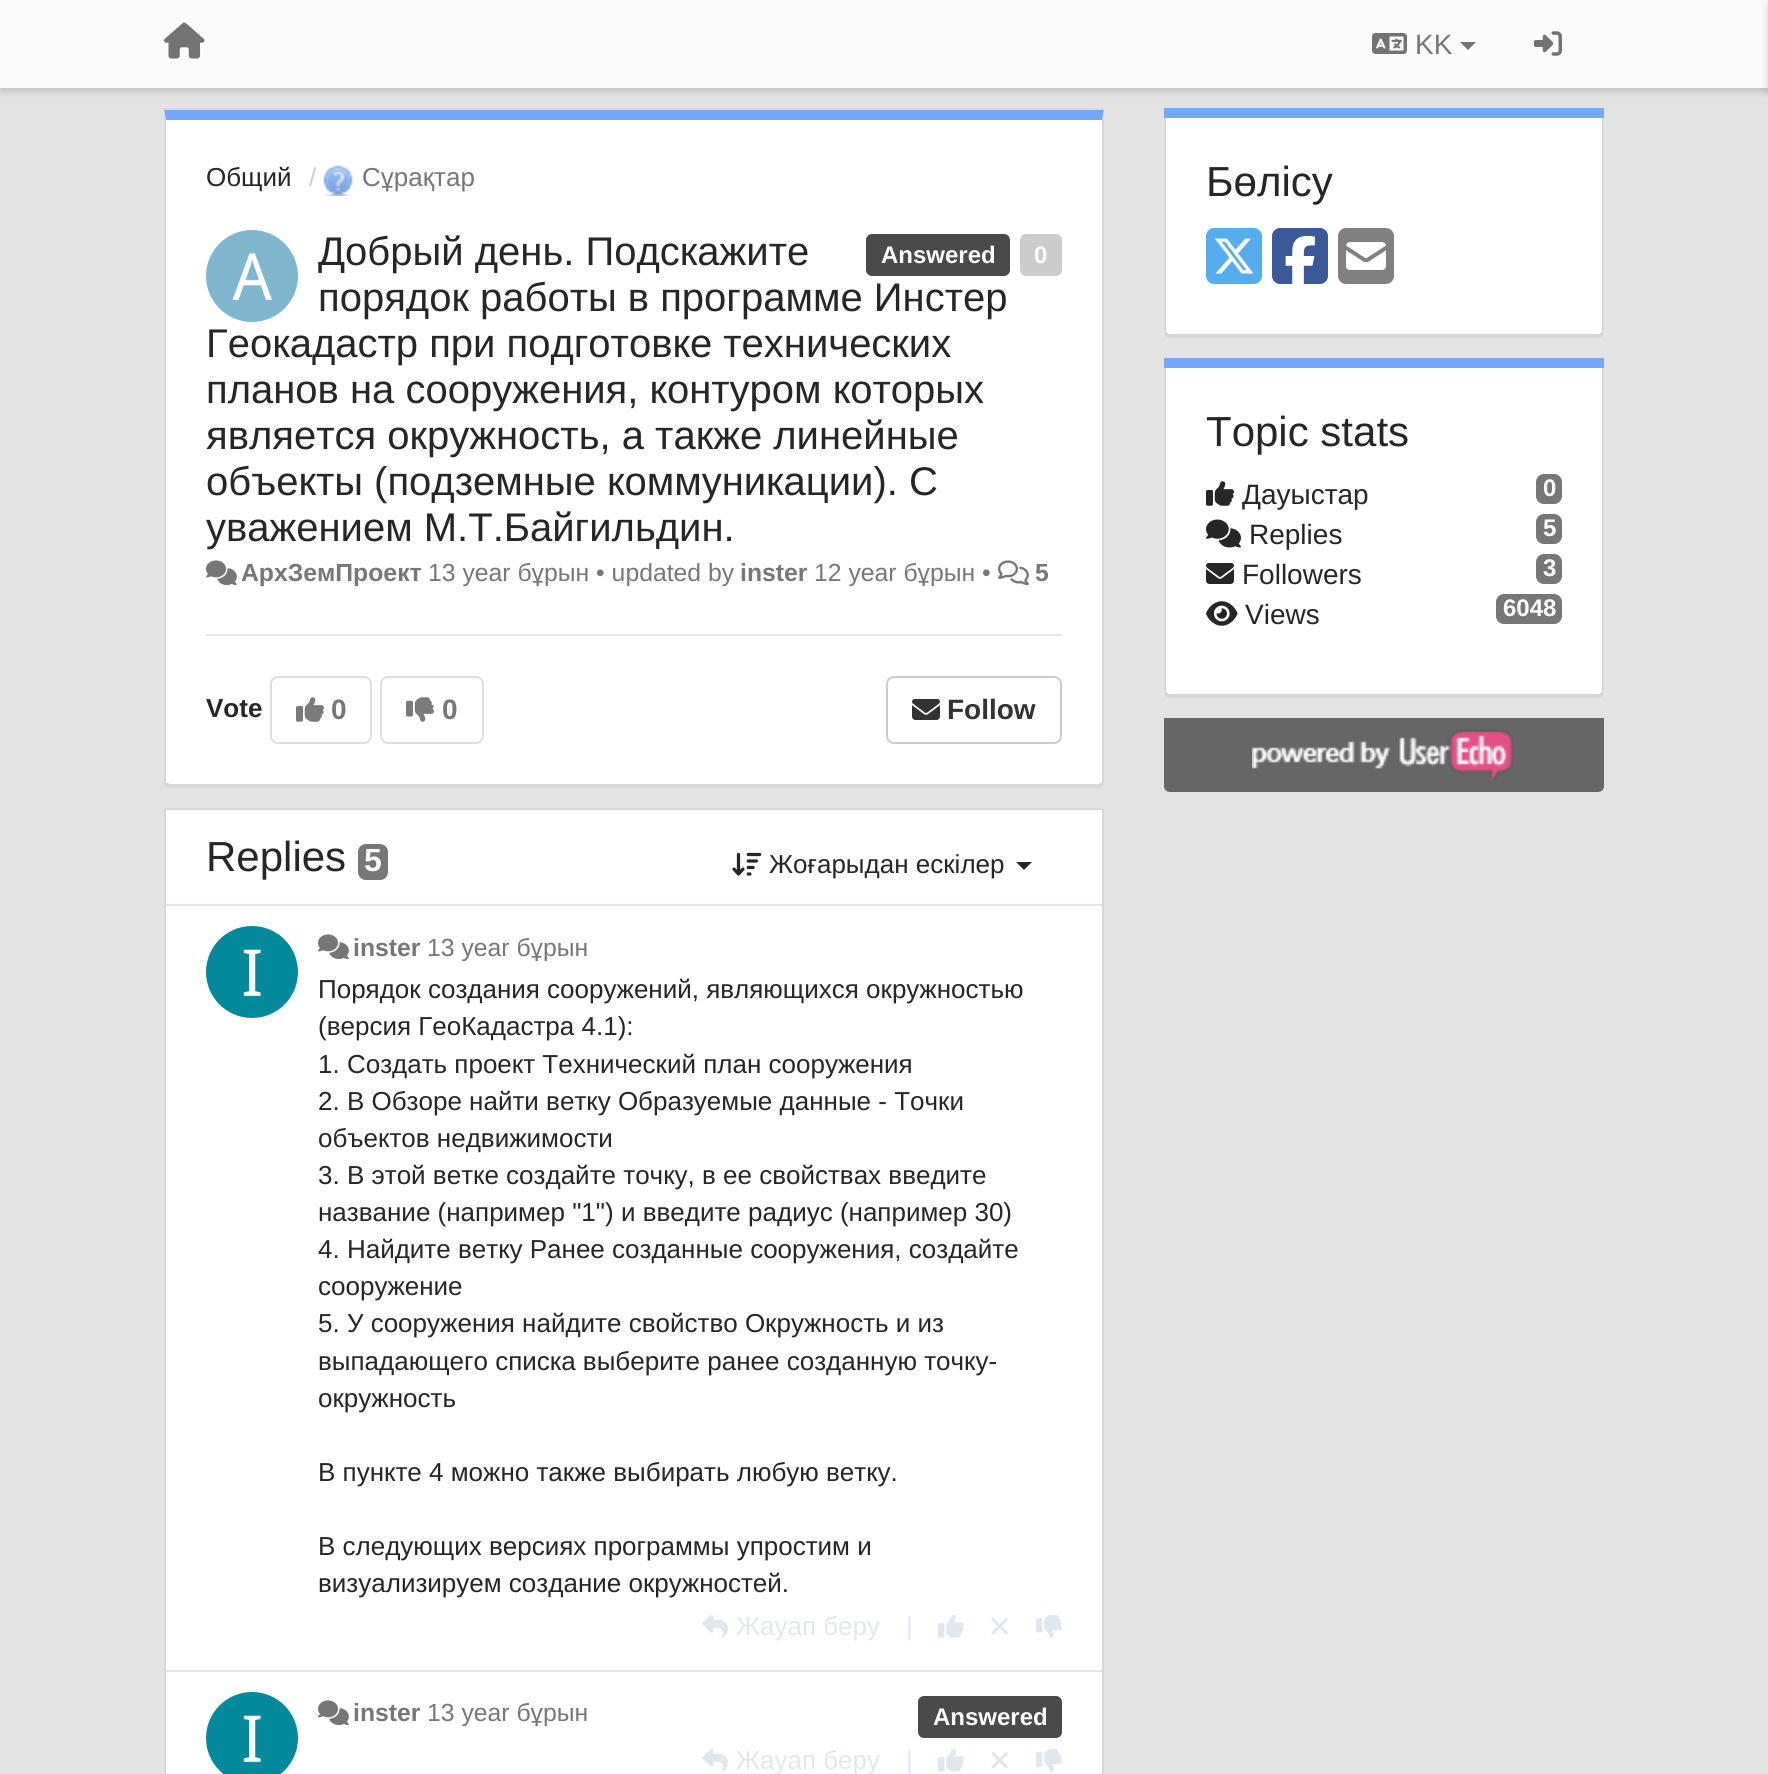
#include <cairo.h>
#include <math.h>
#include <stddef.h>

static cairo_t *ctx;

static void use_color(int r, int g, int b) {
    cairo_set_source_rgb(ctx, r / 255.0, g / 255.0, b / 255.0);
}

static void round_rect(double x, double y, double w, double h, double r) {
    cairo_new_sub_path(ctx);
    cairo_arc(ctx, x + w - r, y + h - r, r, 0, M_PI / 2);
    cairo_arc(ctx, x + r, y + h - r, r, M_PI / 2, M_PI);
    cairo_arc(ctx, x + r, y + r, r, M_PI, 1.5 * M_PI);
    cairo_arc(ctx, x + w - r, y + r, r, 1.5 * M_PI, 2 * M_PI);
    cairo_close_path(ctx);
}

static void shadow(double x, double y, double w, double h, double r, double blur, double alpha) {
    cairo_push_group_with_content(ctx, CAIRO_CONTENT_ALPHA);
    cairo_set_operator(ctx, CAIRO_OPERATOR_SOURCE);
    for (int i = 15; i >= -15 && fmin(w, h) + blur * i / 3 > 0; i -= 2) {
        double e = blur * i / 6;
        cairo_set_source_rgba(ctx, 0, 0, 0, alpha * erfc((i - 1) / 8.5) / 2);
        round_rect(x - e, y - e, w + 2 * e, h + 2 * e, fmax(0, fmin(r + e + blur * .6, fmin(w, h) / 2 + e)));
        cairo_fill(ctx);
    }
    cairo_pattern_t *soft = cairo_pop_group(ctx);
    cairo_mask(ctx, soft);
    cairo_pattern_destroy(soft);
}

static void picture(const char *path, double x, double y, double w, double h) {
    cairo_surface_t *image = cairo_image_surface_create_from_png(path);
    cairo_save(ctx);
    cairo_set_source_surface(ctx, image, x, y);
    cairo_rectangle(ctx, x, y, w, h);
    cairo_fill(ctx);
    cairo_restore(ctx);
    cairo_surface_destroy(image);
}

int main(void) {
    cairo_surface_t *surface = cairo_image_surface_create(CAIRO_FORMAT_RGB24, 1768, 1774);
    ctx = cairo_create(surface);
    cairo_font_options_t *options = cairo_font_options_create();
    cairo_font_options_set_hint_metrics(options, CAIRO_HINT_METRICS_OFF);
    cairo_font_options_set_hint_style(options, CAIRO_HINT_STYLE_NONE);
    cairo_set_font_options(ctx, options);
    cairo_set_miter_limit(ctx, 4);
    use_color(227, 227, 227);
    cairo_paint(ctx);
    use_color(0, 0, 0);
    shadow(0, 4, 1768, 88, 0, 4, 0.15);
    use_color(251, 251, 251);
    cairo_rectangle(ctx, 0, 0, 1768, 88);
    cairo_fill(ctx);
    picture("img1.png", 164, 22, 41, 37);
    picture("img2.png", 1372, 33, 35, 21);
    cairo_select_font_face(ctx, "Liberation Sans", CAIRO_FONT_SLANT_NORMAL, CAIRO_FONT_WEIGHT_NORMAL);
    cairo_set_font_size(ctx, 28);
    use_color(119, 119, 119);
    cairo_move_to(ctx, 1415, 54);
    cairo_show_text(ctx, "KK");
    use_color(115, 115, 115);
    cairo_new_path(ctx);
    cairo_move_to(ctx, 1460, 42);
    cairo_line_to(ctx, 1476, 42);
    cairo_line_to(ctx, 1468, 50);
    cairo_close_path(ctx);
    cairo_fill(ctx);
    picture("img3.png", 1534, 31, 28, 25);
    use_color(0, 0, 0);
    shadow(1768, 4, 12, 88, 0, 4, 0.15);
    use_color(216, 216, 216);
    cairo_rectangle(ctx, 164, 108, 940, 2);
    cairo_fill(ctx);
    use_color(255, 255, 255);
    cairo_new_path(ctx);
    cairo_move_to(ctx, 166, 120);
    cairo_line_to(ctx, 1102, 120);
    cairo_line_to(ctx, 1102, 782);
    cairo_curve_to(ctx, 1102, 783, 1100, 784, 1098, 784);
    cairo_line_to(ctx, 170, 784);
    cairo_curve_to(ctx, 168, 784, 166, 783, 166, 782);
    cairo_close_path(ctx);
    cairo_fill(ctx);
    use_color(118, 167, 250);
    cairo_new_path(ctx);
    cairo_move_to(ctx, 164, 110);
    cairo_line_to(ctx, 166, 120);
    cairo_line_to(ctx, 1102, 120);
    cairo_line_to(ctx, 1104, 110);
    cairo_close_path(ctx);
    cairo_fill(ctx);
    use_color(216, 216, 216);
    cairo_new_path(ctx);
    cairo_move_to(ctx, 1104, 110);
    cairo_line_to(ctx, 1102, 120);
    cairo_line_to(ctx, 1102, 782);
    cairo_line_to(ctx, 1101, 783);
    cairo_line_to(ctx, 1103, 785);
    cairo_line_to(ctx, 1104, 782);
    cairo_close_path(ctx);
    cairo_fill(ctx);
    cairo_new_path(ctx);
    cairo_move_to(ctx, 170, 788);
    cairo_line_to(ctx, 1098, 788);
    cairo_curve_to(ctx, 1100, 788, 1102, 787, 1103, 785);
    cairo_line_to(ctx, 1101, 783);
    cairo_line_to(ctx, 1098, 784);
    cairo_line_to(ctx, 170, 784);
    cairo_line_to(ctx, 167, 783);
    cairo_line_to(ctx, 165, 785);
    cairo_curve_to(ctx, 166, 787, 168, 788, 170, 788);
    cairo_close_path(ctx);
    cairo_fill(ctx);
    cairo_new_path(ctx);
    cairo_move_to(ctx, 166, 120);
    cairo_line_to(ctx, 164, 110);
    cairo_line_to(ctx, 164, 782);
    cairo_curve_to(ctx, 164, 783, 164, 784, 165, 785);
    cairo_line_to(ctx, 167, 783);
    cairo_line_to(ctx, 166, 782);
    cairo_close_path(ctx);
    cairo_fill(ctx);
    cairo_set_font_size(ctx, 26);
    use_color(38, 38, 38);
    cairo_move_to(ctx, 206, 186);
    cairo_show_text(ctx, "Общий");
    use_color(204, 204, 204);
    cairo_move_to(ctx, 309, 186);
    cairo_show_text(ctx, "/");
    picture("img4.png", 323, 165, 30, 31);
    use_color(119, 119, 119);
    cairo_move_to(ctx, 362, 186);
    cairo_show_text(ctx, "Сұрақтар");
    use_color(127, 182, 206);
    cairo_new_path(ctx);
    cairo_arc(ctx, 252, 276, 46, 0, 2 * M_PI);
    cairo_fill(ctx);
    picture("img5.png", 232, 253, 40, 47);
    cairo_set_font_size(ctx, 40);
    use_color(38, 38, 38);
    cairo_move_to(ctx, 318, 265);
    cairo_show_text(ctx, "Добрый день. Подскажите");
    cairo_move_to(ctx, 318, 311);
    cairo_show_text(ctx, "порядок работы в программе Инстер");
    cairo_move_to(ctx, 206, 357);
    cairo_show_text(ctx, "Геокадастр при подготовке технических");
    cairo_move_to(ctx, 206, 403);
    cairo_show_text(ctx, "планов на сооружения, контуром которых");
    cairo_move_to(ctx, 206, 449);
    cairo_show_text(ctx, "является окружность, а также линейные");
    cairo_move_to(ctx, 206, 495);
    cairo_show_text(ctx, "объекты (подземные коммуникации). С");
    cairo_move_to(ctx, 206, 541);
    cairo_show_text(ctx, "уважением М.Т.Байгильдин.");
    use_color(74, 74, 74);
    round_rect(866, 234, 144, 42, 6);
    cairo_fill(ctx);
    cairo_select_font_face(ctx, "Liberation Sans", CAIRO_FONT_SLANT_NORMAL, CAIRO_FONT_WEIGHT_BOLD);
    cairo_set_font_size(ctx, 24);
    use_color(255, 255, 255);
    cairo_move_to(ctx, 881, 263);
    cairo_show_text(ctx, "Answered");
    use_color(204, 204, 204);
    round_rect(1020, 234, 42, 42, 6);
    cairo_fill(ctx);
    use_color(255, 255, 255);
    cairo_move_to(ctx, 1034, 263);
    cairo_show_text(ctx, "0");
    picture("img6.png", 206, 560, 31, 26);
    cairo_set_font_size(ctx, 24.75);
    use_color(119, 119, 119);
    cairo_move_to(ctx, 241, 581);
    cairo_show_text(ctx, "АрхЗемПроект");
    cairo_select_font_face(ctx, "Liberation Sans", CAIRO_FONT_SLANT_NORMAL, CAIRO_FONT_WEIGHT_NORMAL);
    cairo_move_to(ctx, 428, 581);
    cairo_show_text(ctx, "13 year бұрын • updated by");
    cairo_select_font_face(ctx, "Liberation Sans", CAIRO_FONT_SLANT_NORMAL, CAIRO_FONT_WEIGHT_BOLD);
    cairo_move_to(ctx, 740, 581);
    cairo_show_text(ctx, "inster");
    cairo_select_font_face(ctx, "Liberation Sans", CAIRO_FONT_SLANT_NORMAL, CAIRO_FONT_WEIGHT_NORMAL);
    cairo_move_to(ctx, 814, 581);
    cairo_show_text(ctx, "12 year бұрын •");
    picture("img7.png", 998, 560, 31, 26);
    cairo_select_font_face(ctx, "Liberation Sans", CAIRO_FONT_SLANT_NORMAL, CAIRO_FONT_WEIGHT_BOLD);
    cairo_move_to(ctx, 1035, 581);
    cairo_show_text(ctx, "5");
    use_color(229, 229, 229);
    cairo_rectangle(ctx, 206, 634, 856, 2);
    cairo_fill(ctx);
    cairo_set_font_size(ctx, 26);
    use_color(38, 38, 38);
    cairo_move_to(ctx, 206, 717);
    cairo_show_text(ctx, "Vote");
    round_rect(271, 677, 100, 66, 7);
    use_color(222, 222, 222);
    cairo_stroke(ctx);
    picture("img8.png", 296, 697, 28, 25);
    cairo_set_font_size(ctx, 28);
    use_color(119, 119, 119);
    cairo_move_to(ctx, 331, 719);
    cairo_show_text(ctx, "0");
    round_rect(381, 677, 102, 66, 7);
    use_color(222, 222, 222);
    cairo_stroke(ctx);
    picture("img9.png", 406, 697, 28, 25);
    use_color(119, 119, 119);
    cairo_move_to(ctx, 442, 719);
    cairo_show_text(ctx, "0");
    round_rect(887, 677, 174, 66, 7);
    use_color(204, 204, 204);
    cairo_stroke(ctx);
    picture("img10.png", 912, 699, 28, 21);
    use_color(51, 51, 51);
    cairo_move_to(ctx, 947, 719);
    cairo_show_text(ctx, "Follow");
    use_color(216, 216, 216);
    cairo_rectangle(ctx, 164, 808, 940, 2);
    cairo_fill(ctx);
    use_color(255, 255, 255);
    cairo_rectangle(ctx, 166, 810, 936, 964);
    cairo_fill(ctx);
    use_color(216, 216, 216);
    cairo_set_fill_rule(ctx, CAIRO_FILL_RULE_EVEN_ODD);
    cairo_new_path(ctx);
    cairo_move_to(ctx, 164, 810);
    cairo_line_to(ctx, 1104, 810);
    cairo_line_to(ctx, 1104, 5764);
    cairo_curve_to(ctx, 1104, 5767, 1101, 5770, 1098, 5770);
    cairo_line_to(ctx, 170, 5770);
    cairo_curve_to(ctx, 167, 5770, 164, 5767, 164, 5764);
    cairo_close_path(ctx);
    cairo_move_to(ctx, 166, 810);
    cairo_line_to(ctx, 1102, 810);
    cairo_line_to(ctx, 1102, 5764);
    cairo_curve_to(ctx, 1102, 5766, 1100, 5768, 1098, 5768);
    cairo_line_to(ctx, 170, 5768);
    cairo_curve_to(ctx, 168, 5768, 166, 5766, 166, 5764);
    cairo_close_path(ctx);
    cairo_fill(ctx);
    cairo_select_font_face(ctx, "Liberation Sans", CAIRO_FONT_SLANT_NORMAL, CAIRO_FONT_WEIGHT_NORMAL);
    cairo_set_font_size(ctx, 42);
    use_color(38, 38, 38);
    cairo_move_to(ctx, 206, 871);
    cairo_show_text(ctx, "Replies");
    use_color(119, 119, 119);
    round_rect(358, 844, 30, 36, 8);
    cairo_fill(ctx);
    cairo_select_font_face(ctx, "Liberation Sans", CAIRO_FONT_SLANT_NORMAL, CAIRO_FONT_WEIGHT_BOLD);
    cairo_set_font_size(ctx, 32);
    use_color(255, 255, 255);
    cairo_move_to(ctx, 364, 871);
    cairo_show_text(ctx, "5");
    picture("img11.png", 732, 852, 30, 24);
    cairo_select_font_face(ctx, "Liberation Sans", CAIRO_FONT_SLANT_NORMAL, CAIRO_FONT_WEIGHT_NORMAL);
    cairo_set_font_size(ctx, 26);
    use_color(38, 38, 38);
    cairo_move_to(ctx, 769, 873);
    cairo_show_text(ctx, "Жоғарыдан ескілер");
    cairo_set_fill_rule(ctx, CAIRO_FILL_RULE_WINDING);
    cairo_new_path(ctx);
    cairo_move_to(ctx, 1016, 862);
    cairo_line_to(ctx, 1032, 862);
    cairo_line_to(ctx, 1024, 870);
    cairo_close_path(ctx);
    cairo_fill(ctx);
    use_color(225, 232, 237);
    cairo_rectangle(ctx, 166, 904, 936, 2);
    cairo_fill(ctx);
    cairo_rectangle(ctx, 166, 1670, 936, 2);
    cairo_fill(ctx);
    use_color(3, 137, 156);
    cairo_arc(ctx, 252, 972, 46, 0, 2 * M_PI);
    cairo_fill(ctx);
    picture("img12.png", 243, 949, 18, 47);
    picture("img6.png", 318, 934, 31, 26);
    cairo_select_font_face(ctx, "Liberation Sans", CAIRO_FONT_SLANT_NORMAL, CAIRO_FONT_WEIGHT_BOLD);
    cairo_set_font_size(ctx, 24.75);
    use_color(119, 119, 119);
    cairo_move_to(ctx, 353, 956);
    cairo_show_text(ctx, "inster");
    cairo_select_font_face(ctx, "Liberation Sans", CAIRO_FONT_SLANT_NORMAL, CAIRO_FONT_WEIGHT_NORMAL);
    cairo_move_to(ctx, 427, 956);
    cairo_show_text(ctx, "13 year бұрын");
    cairo_set_font_size(ctx, 26);
    use_color(38, 38, 38);
    cairo_move_to(ctx, 318, 998);
    cairo_show_text(ctx, "Порядок создания сооружений, являющихся окружностью");
    cairo_move_to(ctx, 318, 1035);
    cairo_show_text(ctx, "(версия ГеоКадастра 4.1):");
    cairo_move_to(ctx, 318, 1073);
    cairo_show_text(ctx, "1. Создать проект Технический план сооружения");
    cairo_move_to(ctx, 318, 1110);
    cairo_show_text(ctx, "2. В Обзоре найти ветку Образуемые данные - Точки");
    cairo_move_to(ctx, 318, 1147);
    cairo_show_text(ctx, "объектов недвижимости");
    cairo_move_to(ctx, 318, 1184);
    cairo_show_text(ctx, "3. В этой ветке создайте точку, в ее свойствах введите");
    cairo_move_to(ctx, 318, 1221);
    cairo_show_text(ctx, "название (например \"1\") и введите радиус (например 30)");
    cairo_move_to(ctx, 318, 1258);
    cairo_show_text(ctx, "4. Найдите ветку Ранее созданные сооружения, создайте");
    cairo_move_to(ctx, 318, 1295);
    cairo_show_text(ctx, "сооружение");
    cairo_move_to(ctx, 318, 1332);
    cairo_show_text(ctx, "5. У сооружения найдите свойство Окружность и из");
    cairo_move_to(ctx, 318, 1370);
    cairo_show_text(ctx, "выпадающего списка выберите ранее созданную точку-");
    cairo_move_to(ctx, 318, 1407);
    cairo_show_text(ctx, "окружность");
    cairo_move_to(ctx, 318, 1481);
    cairo_show_text(ctx, "В пункте 4 можно также выбирать любую ветку.");
    cairo_move_to(ctx, 318, 1555);
    cairo_show_text(ctx, "В следующих версиях программы упростим и");
    cairo_move_to(ctx, 318, 1592);
    cairo_show_text(ctx, "визуализируем создание окружностей.");
    picture("img13.png", 702, 1615, 26, 23);
    use_color(225, 232, 237);
    cairo_move_to(ctx, 736, 1635);
    cairo_show_text(ctx, "Жауап беру");
    cairo_move_to(ctx, 906, 1635);
    cairo_show_text(ctx, "|");
    picture("img14.png", 938, 1615, 26, 23);
    picture("img15.png", 991, 1618, 17, 17);
    picture("img16.png", 1036, 1615, 26, 23);
    use_color(3, 137, 156);
    cairo_arc(ctx, 252, 1738, 46, 0, 2 * M_PI);
    cairo_fill(ctx);
    picture("img12.png", 243, 1715, 18, 47);
    picture("img6.png", 318, 1700, 31, 26);
    cairo_select_font_face(ctx, "Liberation Sans", CAIRO_FONT_SLANT_NORMAL, CAIRO_FONT_WEIGHT_BOLD);
    cairo_set_font_size(ctx, 24.75);
    use_color(119, 119, 119);
    cairo_move_to(ctx, 353, 1721);
    cairo_show_text(ctx, "inster");
    cairo_select_font_face(ctx, "Liberation Sans", CAIRO_FONT_SLANT_NORMAL, CAIRO_FONT_WEIGHT_NORMAL);
    cairo_move_to(ctx, 427, 1721);
    cairo_show_text(ctx, "13 year бұрын");
    use_color(74, 74, 74);
    round_rect(918, 1696, 144, 42, 6);
    cairo_fill(ctx);
    cairo_select_font_face(ctx, "Liberation Sans", CAIRO_FONT_SLANT_NORMAL, CAIRO_FONT_WEIGHT_BOLD);
    cairo_set_font_size(ctx, 24);
    use_color(255, 255, 255);
    cairo_move_to(ctx, 933, 1725);
    cairo_show_text(ctx, "Answered");
    picture("img13.png", 702, 1749, 26, 23);
    cairo_select_font_face(ctx, "Liberation Sans", CAIRO_FONT_SLANT_NORMAL, CAIRO_FONT_WEIGHT_NORMAL);
    cairo_set_font_size(ctx, 26);
    use_color(225, 232, 237);
    cairo_move_to(ctx, 736, 1769);
    cairo_show_text(ctx, "Жауап беру");
    cairo_move_to(ctx, 906, 1769);
    cairo_show_text(ctx, "|");
    picture("img14.png", 938, 1749, 26, 23);
    picture("img15.png", 991, 1752, 17, 17);
    picture("img16.png", 1036, 1749, 26, 23);
    use_color(118, 167, 250);
    cairo_rectangle(ctx, 1164, 108, 440, 10);
    cairo_fill(ctx);
    use_color(255, 255, 255);
    cairo_new_path(ctx);
    cairo_move_to(ctx, 1166, 118);
    cairo_line_to(ctx, 1602, 118);
    cairo_line_to(ctx, 1602, 332);
    cairo_curve_to(ctx, 1602, 333, 1600, 334, 1598, 334);
    cairo_line_to(ctx, 1170, 334);
    cairo_curve_to(ctx, 1168, 334, 1166, 333, 1166, 332);
    cairo_close_path(ctx);
    cairo_fill(ctx);
    use_color(216, 216, 216);
    cairo_set_fill_rule(ctx, CAIRO_FILL_RULE_EVEN_ODD);
    cairo_new_path(ctx);
    cairo_move_to(ctx, 1164, 118);
    cairo_line_to(ctx, 1604, 118);
    cairo_line_to(ctx, 1604, 332);
    cairo_curve_to(ctx, 1604, 335, 1601, 338, 1598, 338);
    cairo_line_to(ctx, 1170, 338);
    cairo_curve_to(ctx, 1167, 338, 1164, 335, 1164, 332);
    cairo_close_path(ctx);
    cairo_move_to(ctx, 1166, 118);
    cairo_line_to(ctx, 1602, 118);
    cairo_line_to(ctx, 1602, 332);
    cairo_curve_to(ctx, 1602, 333, 1600, 334, 1598, 334);
    cairo_line_to(ctx, 1170, 334);
    cairo_curve_to(ctx, 1168, 334, 1166, 333, 1166, 332);
    cairo_close_path(ctx);
    cairo_fill(ctx);
    cairo_set_font_size(ctx, 42);
    use_color(38, 38, 38);
    cairo_move_to(ctx, 1206, 196);
    cairo_show_text(ctx, "Бөлісу");
    picture("img17.png", 1206, 228, 56, 56);
    picture("img18.png", 1272, 228, 56, 56);
    picture("img19.png", 1338, 228, 56, 56);
    use_color(118, 167, 250);
    cairo_rectangle(ctx, 1164, 358, 440, 10);
    cairo_fill(ctx);
    use_color(255, 255, 255);
    cairo_set_fill_rule(ctx, CAIRO_FILL_RULE_WINDING);
    cairo_new_path(ctx);
    cairo_move_to(ctx, 1166, 368);
    cairo_line_to(ctx, 1602, 368);
    cairo_line_to(ctx, 1602, 692);
    cairo_curve_to(ctx, 1602, 693, 1600, 694, 1598, 694);
    cairo_line_to(ctx, 1170, 694);
    cairo_curve_to(ctx, 1168, 694, 1166, 693, 1166, 692);
    cairo_close_path(ctx);
    cairo_fill(ctx);
    use_color(216, 216, 216);
    cairo_set_fill_rule(ctx, CAIRO_FILL_RULE_EVEN_ODD);
    cairo_new_path(ctx);
    cairo_move_to(ctx, 1164, 368);
    cairo_line_to(ctx, 1604, 368);
    cairo_line_to(ctx, 1604, 692);
    cairo_curve_to(ctx, 1604, 695, 1601, 698, 1598, 698);
    cairo_line_to(ctx, 1170, 698);
    cairo_curve_to(ctx, 1167, 698, 1164, 695, 1164, 692);
    cairo_close_path(ctx);
    cairo_move_to(ctx, 1166, 368);
    cairo_line_to(ctx, 1602, 368);
    cairo_line_to(ctx, 1602, 692);
    cairo_curve_to(ctx, 1602, 693, 1600, 694, 1598, 694);
    cairo_line_to(ctx, 1170, 694);
    cairo_curve_to(ctx, 1168, 694, 1166, 693, 1166, 692);
    cairo_close_path(ctx);
    cairo_fill(ctx);
    use_color(38, 38, 38);
    cairo_move_to(ctx, 1206, 446);
    cairo_show_text(ctx, "Topic stats");
    picture("img20.png", 1206, 481, 28, 25);
    cairo_set_font_size(ctx, 28);
    cairo_move_to(ctx, 1242, 504);
    cairo_show_text(ctx, "Дауыстар");
    use_color(119, 119, 119);
    round_rect(1536, 474, 26, 30, 8);
    cairo_fill(ctx);
    cairo_select_font_face(ctx, "Liberation Sans", CAIRO_FONT_SLANT_NORMAL, CAIRO_FONT_WEIGHT_BOLD);
    cairo_set_font_size(ctx, 24);
    use_color(255, 255, 255);
    cairo_move_to(ctx, 1543, 496);
    cairo_show_text(ctx, "0");
    picture("img21.png", 1206, 519, 35, 29);
    cairo_select_font_face(ctx, "Liberation Sans", CAIRO_FONT_SLANT_NORMAL, CAIRO_FONT_WEIGHT_NORMAL);
    cairo_set_font_size(ctx, 28);
    use_color(38, 38, 38);
    cairo_move_to(ctx, 1249, 544);
    cairo_show_text(ctx, "Replies");
    use_color(119, 119, 119);
    round_rect(1536, 514, 26, 30, 8);
    cairo_fill(ctx);
    cairo_select_font_face(ctx, "Liberation Sans", CAIRO_FONT_SLANT_NORMAL, CAIRO_FONT_WEIGHT_BOLD);
    cairo_set_font_size(ctx, 24);
    use_color(255, 255, 255);
    cairo_move_to(ctx, 1543, 536);
    cairo_show_text(ctx, "5");
    picture("img22.png", 1206, 563, 28, 21);
    cairo_select_font_face(ctx, "Liberation Sans", CAIRO_FONT_SLANT_NORMAL, CAIRO_FONT_WEIGHT_NORMAL);
    cairo_set_font_size(ctx, 28);
    use_color(38, 38, 38);
    cairo_move_to(ctx, 1242, 584);
    cairo_show_text(ctx, "Followers");
    use_color(119, 119, 119);
    round_rect(1536, 554, 26, 30, 8);
    cairo_fill(ctx);
    cairo_select_font_face(ctx, "Liberation Sans", CAIRO_FONT_SLANT_NORMAL, CAIRO_FONT_WEIGHT_BOLD);
    cairo_set_font_size(ctx, 24);
    use_color(255, 255, 255);
    cairo_move_to(ctx, 1543, 576);
    cairo_show_text(ctx, "3");
    picture("img23.png", 1206, 601, 32, 25);
    cairo_select_font_face(ctx, "Liberation Sans", CAIRO_FONT_SLANT_NORMAL, CAIRO_FONT_WEIGHT_NORMAL);
    cairo_set_font_size(ctx, 28);
    use_color(38, 38, 38);
    cairo_move_to(ctx, 1245, 624);
    cairo_show_text(ctx, "Views");
    use_color(119, 119, 119);
    round_rect(1496, 594, 66, 30, 8);
    cairo_fill(ctx);
    cairo_select_font_face(ctx, "Liberation Sans", CAIRO_FONT_SLANT_NORMAL, CAIRO_FONT_WEIGHT_BOLD);
    cairo_set_font_size(ctx, 24);
    use_color(255, 255, 255);
    cairo_move_to(ctx, 1503, 616);
    cairo_show_text(ctx, "6048");
    use_color(102, 102, 102);
    cairo_new_path(ctx);
    cairo_move_to(ctx, 1164, 718);
    cairo_line_to(ctx, 1604, 718);
    cairo_line_to(ctx, 1604, 786);
    cairo_curve_to(ctx, 1604, 789.5, 1601.5, 792, 1598, 792);
    cairo_line_to(ctx, 1170, 792);
    cairo_curve_to(ctx, 1166.5, 792, 1164, 789.5, 1164, 786);
    cairo_close_path(ctx);
    cairo_fill(ctx);
    picture("img24.png", 1252, 729, 262, 52);
    cairo_surface_write_to_png(surface, "result.png");
    cairo_font_options_destroy(options);
    cairo_destroy(ctx);
    cairo_surface_destroy(surface);
    return 0;
}
